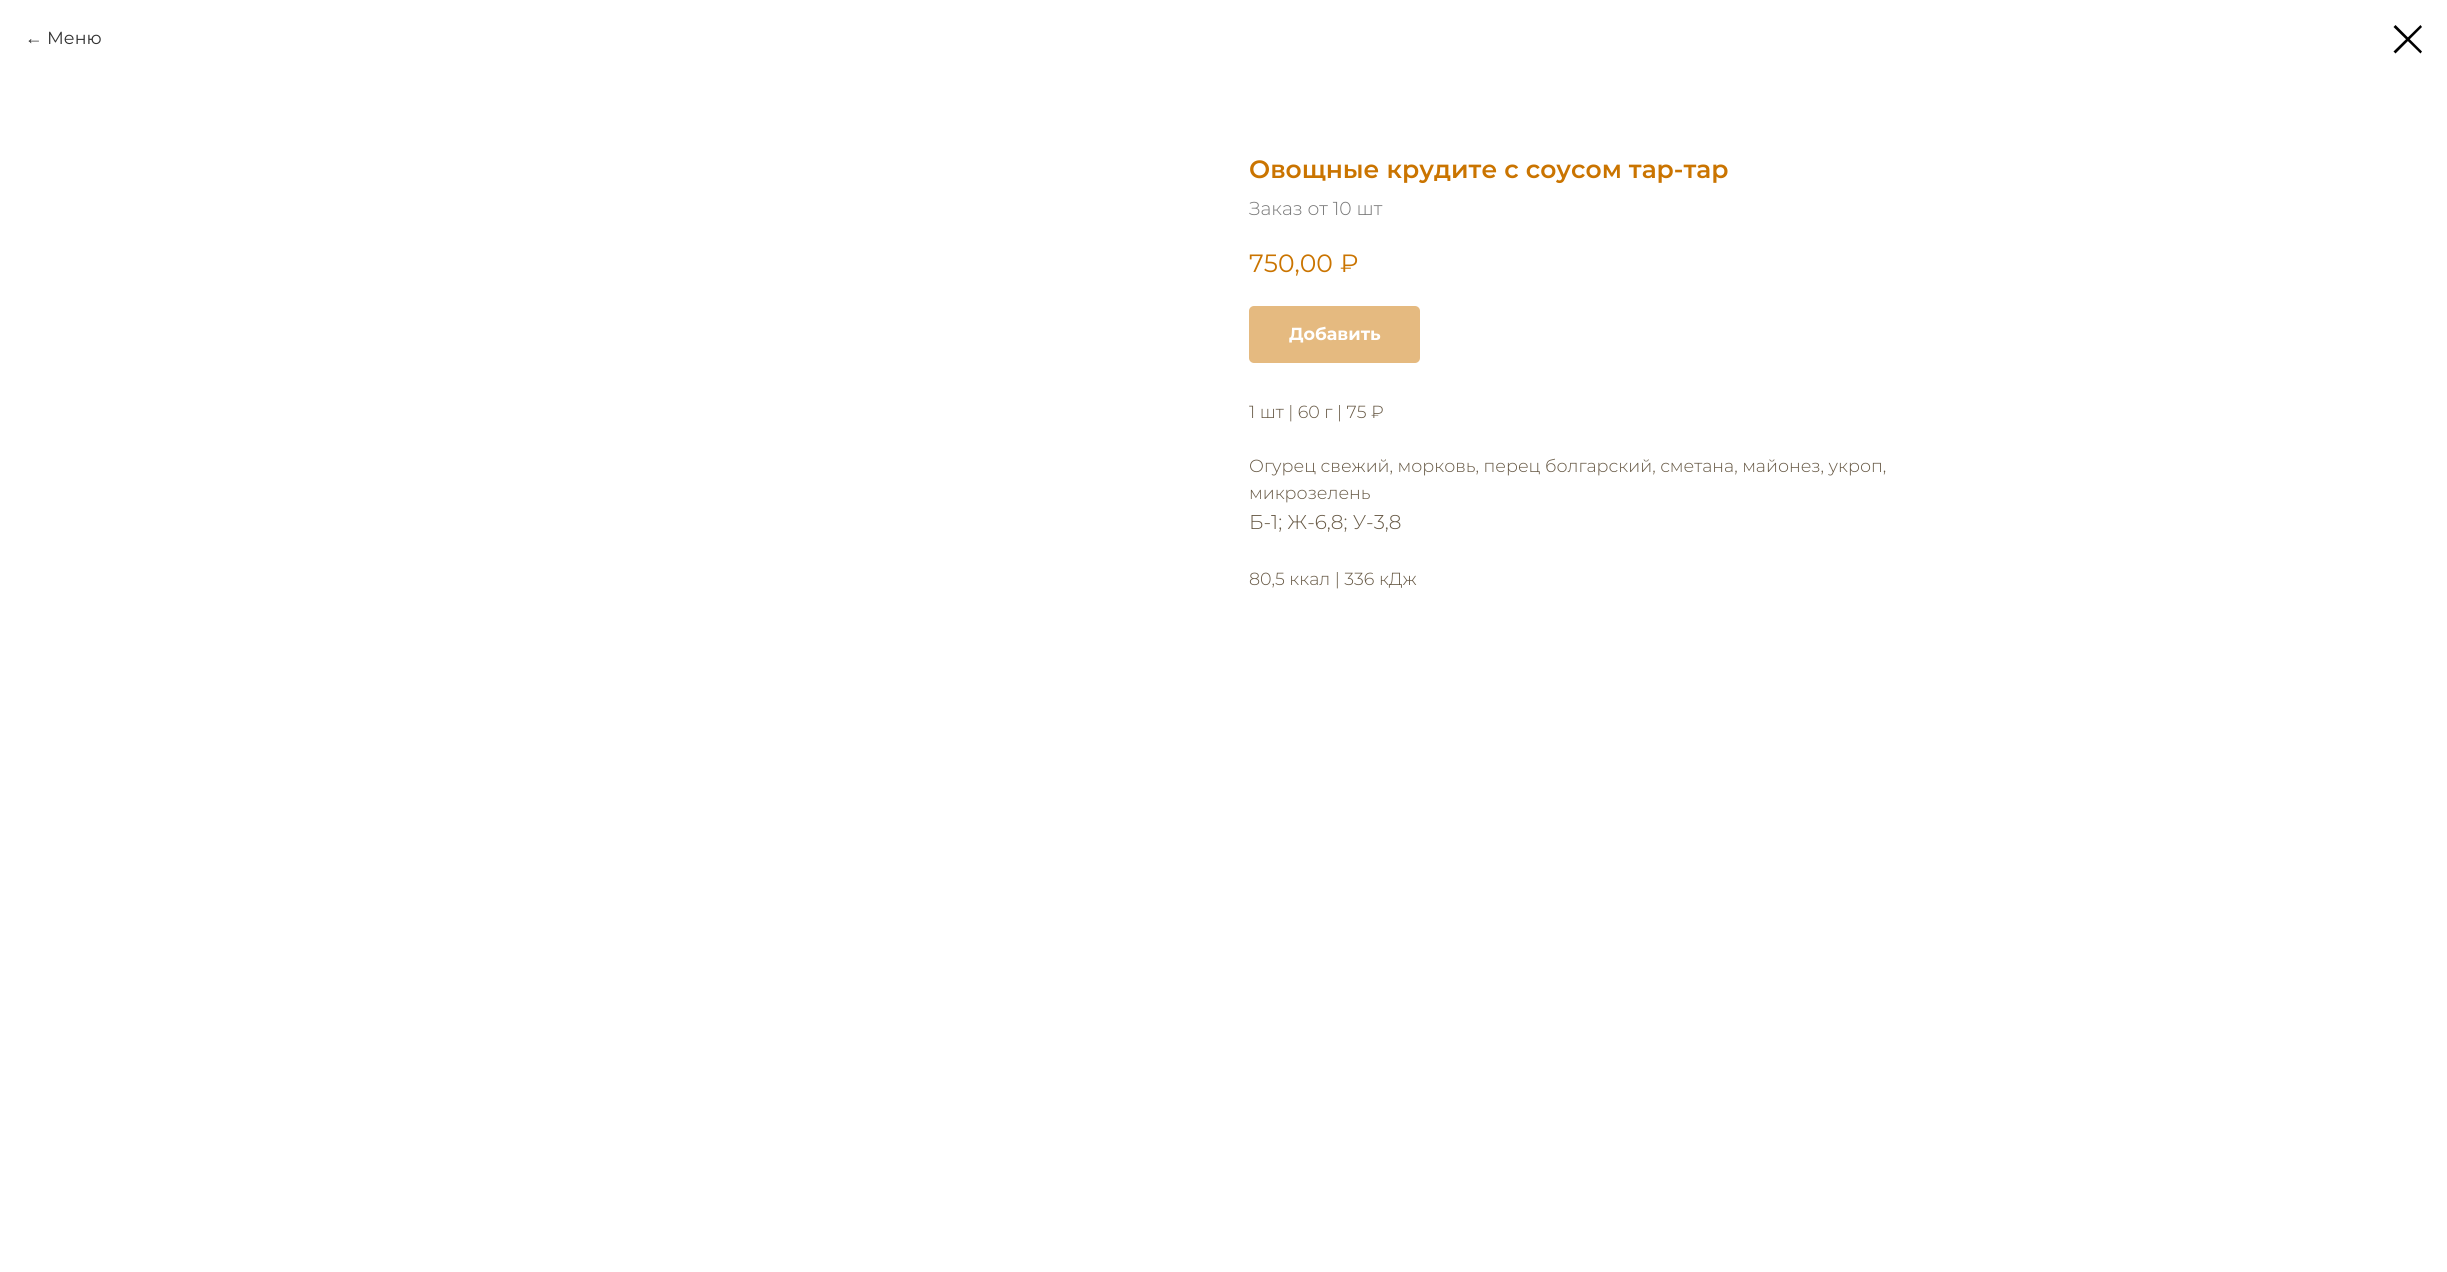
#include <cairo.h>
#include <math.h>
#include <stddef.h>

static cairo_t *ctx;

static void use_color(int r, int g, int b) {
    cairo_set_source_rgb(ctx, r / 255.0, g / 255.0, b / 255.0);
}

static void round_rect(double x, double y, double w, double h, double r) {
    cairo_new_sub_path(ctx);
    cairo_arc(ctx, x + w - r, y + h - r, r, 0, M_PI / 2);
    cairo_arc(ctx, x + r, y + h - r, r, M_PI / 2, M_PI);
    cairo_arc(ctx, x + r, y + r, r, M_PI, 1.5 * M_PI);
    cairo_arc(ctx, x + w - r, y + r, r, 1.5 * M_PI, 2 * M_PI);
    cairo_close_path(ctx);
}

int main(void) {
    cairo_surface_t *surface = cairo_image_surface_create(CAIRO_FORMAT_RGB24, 2447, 1272);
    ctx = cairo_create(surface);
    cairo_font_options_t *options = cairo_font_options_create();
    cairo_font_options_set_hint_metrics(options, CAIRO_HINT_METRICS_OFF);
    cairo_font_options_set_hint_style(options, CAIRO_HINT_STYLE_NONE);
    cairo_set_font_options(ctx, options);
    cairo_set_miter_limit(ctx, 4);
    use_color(255, 255, 255);
    cairo_paint(ctx);
    cairo_select_font_face(ctx, "Liberation Sans", CAIRO_FONT_SLANT_NORMAL, CAIRO_FONT_WEIGHT_NORMAL);
    cairo_set_font_size(ctx, 17.5);
    use_color(51, 51, 51);
    cairo_move_to(ctx, 25, 44);
    cairo_show_text(ctx, "←");
    cairo_select_font_face(ctx, "Montserrat", CAIRO_FONT_SLANT_NORMAL, CAIRO_FONT_WEIGHT_NORMAL);
    cairo_move_to(ctx, 47, 44);
    cairo_show_text(ctx, "Меню");
    use_color(0, 0, 0);
    cairo_set_fill_rule(ctx, CAIRO_FILL_RULE_EVEN_ODD);
    cairo_new_path(ctx);
    cairo_move_to(ctx, 2393.5, 27);
    cairo_line_to(ctx, 2395.5, 25);
    cairo_line_to(ctx, 2422, 51.5);
    cairo_line_to(ctx, 2420.5, 53.5);
    cairo_close_path(ctx);
    cairo_fill(ctx);
    cairo_new_path(ctx);
    cairo_move_to(ctx, 2420.5, 25);
    cairo_line_to(ctx, 2422, 27);
    cairo_line_to(ctx, 2395.5, 53.5);
    cairo_line_to(ctx, 2393.5, 51.5);
    cairo_close_path(ctx);
    cairo_fill(ctx);
    cairo_select_font_face(ctx, "Montserrat SemiBold", CAIRO_FONT_SLANT_NORMAL, CAIRO_FONT_WEIGHT_NORMAL);
    cairo_set_font_size(ctx, 25);
    use_color(202, 116, 0);
    cairo_move_to(ctx, 1249, 178);
    cairo_show_text(ctx, "Овощные крудите с соусом тар-тар");
    cairo_select_font_face(ctx, "Montserrat Light", CAIRO_FONT_SLANT_NORMAL, CAIRO_FONT_WEIGHT_NORMAL);
    cairo_set_font_size(ctx, 18.75);
    use_color(119, 119, 119);
    cairo_move_to(ctx, 1249, 215);
    cairo_show_text(ctx, "Заказ от 10 шт");
    cairo_select_font_face(ctx, "Montserrat", CAIRO_FONT_SLANT_NORMAL, CAIRO_FONT_WEIGHT_NORMAL);
    cairo_set_font_size(ctx, 25);
    use_color(202, 116, 0);
    cairo_move_to(ctx, 1249, 272);
    cairo_show_text(ctx, "750,00");
    cairo_move_to(ctx, 1340, 272);
    cairo_show_text(ctx, "₽");
    use_color(229, 186, 128);
    round_rect(1249, 306, 171, 57, 5);
    cairo_fill(ctx);
    cairo_select_font_face(ctx, "Montserrat", CAIRO_FONT_SLANT_NORMAL, CAIRO_FONT_WEIGHT_BOLD);
    cairo_set_font_size(ctx, 17.5);
    use_color(255, 255, 255);
    cairo_move_to(ctx, 1289, 340);
    cairo_show_text(ctx, "Добавить");
    cairo_select_font_face(ctx, "Montserrat Light", CAIRO_FONT_SLANT_NORMAL, CAIRO_FONT_WEIGHT_NORMAL);
    use_color(102, 88, 68);
    cairo_move_to(ctx, 1249, 418);
    cairo_show_text(ctx, "1 шт | 60 г | 75 ₽");
    cairo_move_to(ctx, 1249, 472);
    cairo_show_text(ctx, "Огурец свежий, морковь, перец болгарский, сметана, майонез, укроп,");
    cairo_move_to(ctx, 1249, 499);
    cairo_show_text(ctx, "микрозелень");
    cairo_set_font_size(ctx, 20);
    cairo_move_to(ctx, 1249, 529);
    cairo_show_text(ctx, "Б-1; Ж-6,8; У-3,8");
    cairo_set_font_size(ctx, 17.5);
    cairo_move_to(ctx, 1249, 585);
    cairo_show_text(ctx, "80,5 ккал | 336 кДж");
    cairo_surface_write_to_png(surface, "result.png");
    cairo_font_options_destroy(options);
    cairo_destroy(ctx);
    cairo_surface_destroy(surface);
    return 0;
}
